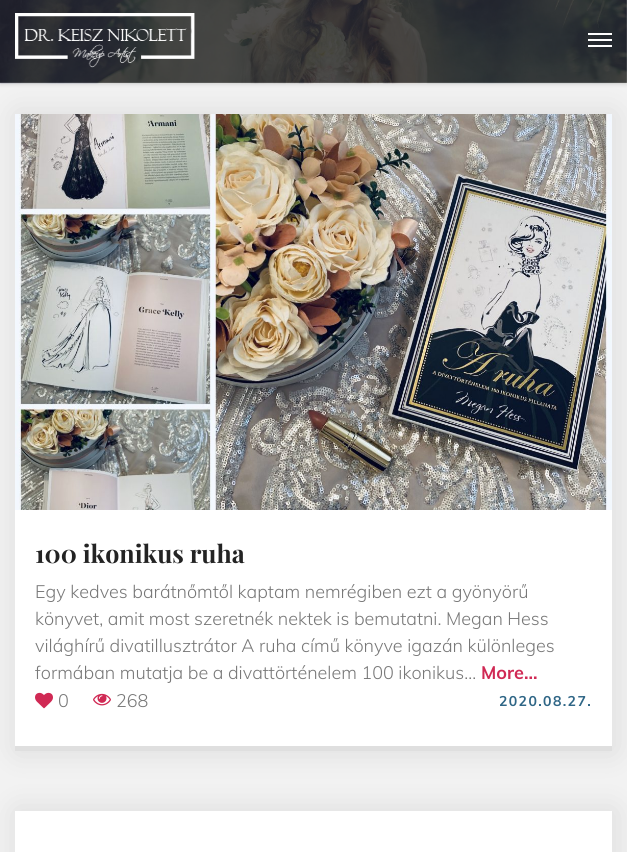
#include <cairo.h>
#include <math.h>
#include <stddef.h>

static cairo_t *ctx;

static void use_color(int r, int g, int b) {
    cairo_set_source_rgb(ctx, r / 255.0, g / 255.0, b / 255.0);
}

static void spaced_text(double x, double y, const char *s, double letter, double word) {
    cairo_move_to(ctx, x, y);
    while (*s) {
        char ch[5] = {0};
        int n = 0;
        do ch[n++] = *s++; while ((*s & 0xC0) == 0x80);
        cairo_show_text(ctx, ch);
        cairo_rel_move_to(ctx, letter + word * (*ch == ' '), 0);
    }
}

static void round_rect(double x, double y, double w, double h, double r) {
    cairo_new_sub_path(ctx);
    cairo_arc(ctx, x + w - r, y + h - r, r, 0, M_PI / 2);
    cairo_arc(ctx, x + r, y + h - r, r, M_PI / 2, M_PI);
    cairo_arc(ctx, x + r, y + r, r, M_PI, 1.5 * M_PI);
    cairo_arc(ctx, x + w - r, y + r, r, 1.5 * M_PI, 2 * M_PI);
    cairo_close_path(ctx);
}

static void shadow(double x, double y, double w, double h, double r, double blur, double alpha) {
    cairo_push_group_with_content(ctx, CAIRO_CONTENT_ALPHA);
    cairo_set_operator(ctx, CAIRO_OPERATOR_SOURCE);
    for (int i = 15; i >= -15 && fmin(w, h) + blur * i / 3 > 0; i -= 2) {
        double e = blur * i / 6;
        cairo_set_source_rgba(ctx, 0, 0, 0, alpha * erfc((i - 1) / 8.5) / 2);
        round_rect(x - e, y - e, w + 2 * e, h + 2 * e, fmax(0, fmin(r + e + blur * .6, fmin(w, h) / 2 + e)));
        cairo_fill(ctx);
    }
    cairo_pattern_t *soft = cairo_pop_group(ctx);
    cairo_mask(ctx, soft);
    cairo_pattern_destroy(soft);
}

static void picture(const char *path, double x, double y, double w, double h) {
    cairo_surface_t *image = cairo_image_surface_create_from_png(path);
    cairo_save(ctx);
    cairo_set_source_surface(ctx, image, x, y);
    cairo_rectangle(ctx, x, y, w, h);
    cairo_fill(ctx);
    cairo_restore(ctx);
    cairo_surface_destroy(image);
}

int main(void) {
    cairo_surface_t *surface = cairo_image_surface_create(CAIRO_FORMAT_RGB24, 627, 852);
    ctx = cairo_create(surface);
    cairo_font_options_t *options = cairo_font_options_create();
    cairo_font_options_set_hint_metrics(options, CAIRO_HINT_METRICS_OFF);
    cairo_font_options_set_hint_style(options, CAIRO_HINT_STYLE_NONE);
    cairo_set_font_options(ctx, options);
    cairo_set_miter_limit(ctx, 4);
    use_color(255, 255, 255);
    cairo_paint(ctx);
    use_color(242, 242, 242);
    cairo_rectangle(ctx, 0, 78, 627, 774);
    cairo_fill(ctx);
    use_color(0, 0, 0);
    shadow(0, 2, 627, 83, 0, 1.5, 0.1);
    shadow(17, 114, 597, 637, 0, 15, 0.1);
    picture("img1.png", 0, 0, 627, 84);
    picture("img2.png", 15, 13, 180, 55);
    use_color(255, 255, 255);
    cairo_rectangle(ctx, 588, 39, 24, 2);
    cairo_fill(ctx);
    cairo_rectangle(ctx, 588, 33, 24, 2);
    cairo_fill(ctx);
    cairo_rectangle(ctx, 588, 45, 24, 2);
    cairo_fill(ctx);
    cairo_rectangle(ctx, 15, 510, 597, 236);
    cairo_fill(ctx);
    picture("img3.png", 15, 114, 597, 396);
    use_color(223, 223, 223);
    cairo_rectangle(ctx, 15, 746, 597, 5);
    cairo_fill(ctx);
    cairo_select_font_face(ctx, "Playfair Display", CAIRO_FONT_SLANT_NORMAL, CAIRO_FONT_WEIGHT_BOLD);
    cairo_set_font_size(ctx, 25);
    use_color(35, 35, 35);
    cairo_move_to(ctx, 35, 563);
    cairo_show_text(ctx, "100 ikonikus ruha");
    cairo_select_font_face(ctx, "Muli Light", CAIRO_FONT_SLANT_NORMAL, CAIRO_FONT_WEIGHT_NORMAL);
    cairo_set_font_size(ctx, 18);
    use_color(120, 120, 120);
    cairo_move_to(ctx, 35, 598);
    cairo_show_text(ctx, "Egy kedves barátnőmtől kaptam nemrégiben ezt a gyönyörű");
    cairo_move_to(ctx, 35, 625);
    cairo_show_text(ctx, "könyvet, amit most szeretnék nektek is bemutatni. Megan Hess");
    cairo_move_to(ctx, 35, 652);
    cairo_show_text(ctx, "világhírű divatillusztrátor A ruha című könyve igazán különleges");
    cairo_move_to(ctx, 35, 679);
    cairo_show_text(ctx, "formában mutatja be a divattörténelem 100 ikonikus…");
    cairo_select_font_face(ctx, "Muli", CAIRO_FONT_SLANT_NORMAL, CAIRO_FONT_WEIGHT_BOLD);
    use_color(208, 41, 84);
    cairo_move_to(ctx, 481, 679);
    cairo_show_text(ctx, "More...");
    picture("img4.png", 35, 692, 18, 17);
    cairo_select_font_face(ctx, "Muli Light", CAIRO_FONT_SLANT_NORMAL, CAIRO_FONT_WEIGHT_NORMAL);
    use_color(120, 120, 120);
    cairo_move_to(ctx, 58, 707);
    cairo_show_text(ctx, "0");
    picture("img5.png", 93, 693, 18, 13);
    cairo_move_to(ctx, 116, 707);
    cairo_show_text(ctx, "268");
    cairo_select_font_face(ctx, "Muli", CAIRO_FONT_SLANT_NORMAL, CAIRO_FONT_WEIGHT_BOLD);
    cairo_set_font_size(ctx, 14);
    use_color(47, 102, 134);
    spaced_text(499, 706, "2020.08.27.", 1.4, 0);
    use_color(0, 0, 0);
    shadow(17, 811, 597, 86, 0, 15, 0.1);
    use_color(255, 255, 255);
    cairo_rectangle(ctx, 15, 811, 597, 41);
    cairo_fill(ctx);
    cairo_surface_write_to_png(surface, "result.png");
    cairo_font_options_destroy(options);
    cairo_destroy(ctx);
    cairo_surface_destroy(surface);
    return 0;
}
